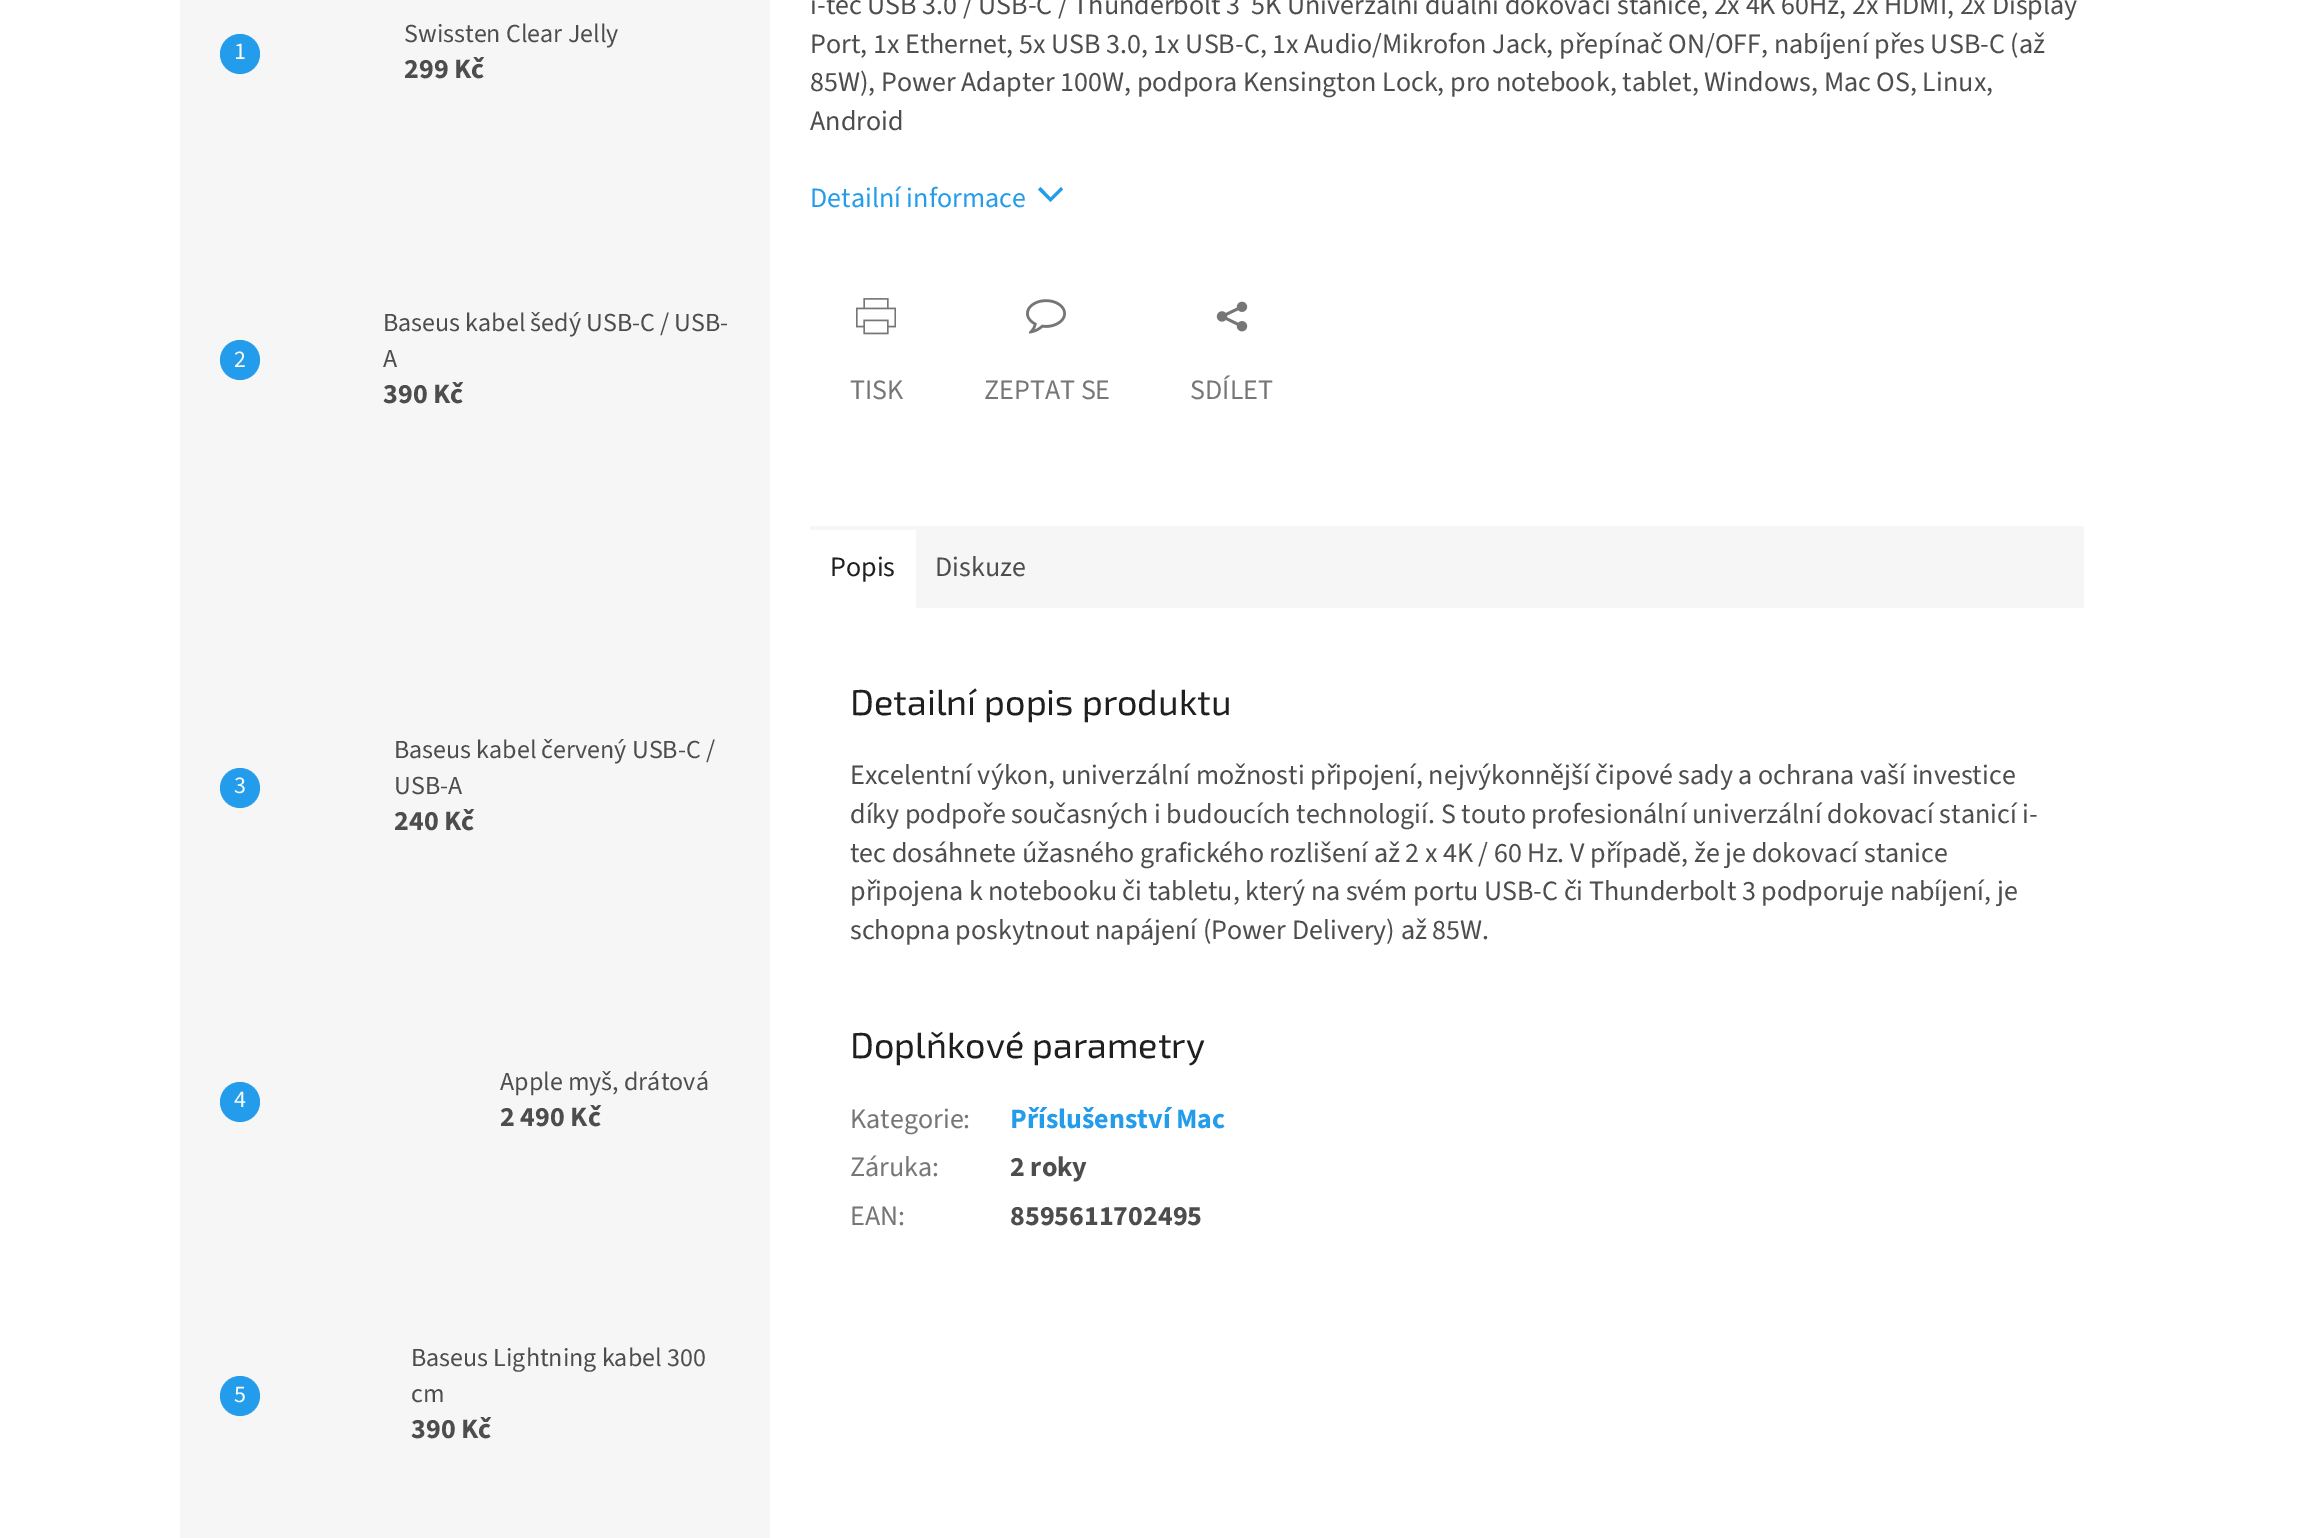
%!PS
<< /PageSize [2303 1538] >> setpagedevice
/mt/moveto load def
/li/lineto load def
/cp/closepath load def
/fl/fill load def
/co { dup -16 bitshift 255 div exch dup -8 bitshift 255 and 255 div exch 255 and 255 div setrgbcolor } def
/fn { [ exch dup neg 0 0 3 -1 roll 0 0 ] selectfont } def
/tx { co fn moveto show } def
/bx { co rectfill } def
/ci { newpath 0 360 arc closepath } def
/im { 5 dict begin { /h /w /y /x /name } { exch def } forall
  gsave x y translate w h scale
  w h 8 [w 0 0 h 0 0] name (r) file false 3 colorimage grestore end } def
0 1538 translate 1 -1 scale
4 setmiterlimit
0 0 2303 1538 16#FFFFFF bx
180 0 590 1538 16#F6F6F6 bx
16#239CEB co
240 54 20 ci fl
240 360 20 ci fl
240 788 20 ci fl
240 1102 20 ci fl
240 1396 20 ci fl
1038 189.5 mt 1040.5 187 li 1050.5 197.5 li 1061 187 li 1063 189.5 li 1050.5 202 li cp fl
(media/1.raw) 856 298 40 37 im
(media/2.raw) 1026 299 40 35 im
(media/3.raw) 1216 301 32 31 im
916 526 1168 82 16#F6F6F6 bx
810 526 106 4 16#F6F6F6 bx
(1) 234 59 /SourceSans3-Regular 24 16#FFFFFF tx
(Swissten Clear Jelly) 404 42 /SourceSans3-Regular 26 16#4D4D4D tx
(299 Kč) 404 78 /SourceSans3-Bold 28 16#4D4D4D tx
(2) 234 367 /SourceSans3-Regular 24 16#FFFFFF tx
(Baseus kabel šedý USB-C / USB-) 383 331 /SourceSans3-Regular 26 16#4D4D4D tx
(A) 383 367 /SourceSans3-Regular 26 16#4D4D4D tx
(390 Kč) 383 403 /SourceSans3-Bold 28 16#4D4D4D tx
(3) 234 793 /SourceSans3-Regular 24 16#FFFFFF tx
(Baseus kabel červený USB-C /) 394 758 /SourceSans3-Regular 26 16#4D4D4D tx
(USB-A) 394 794 /SourceSans3-Regular 26 16#4D4D4D tx
(240 Kč) 394 830 /SourceSans3-Bold 28 16#4D4D4D tx
(4) 234 1107 /SourceSans3-Regular 24 16#FFFFFF tx
(Apple myš, drátová) 500 1090 /SourceSans3-Regular 26 16#4D4D4D tx
(2 490 Kč) 500 1126 /SourceSans3-Bold 28 16#4D4D4D tx
(5) 234 1402 /SourceSans3-Regular 24 16#FFFFFF tx
(Baseus Lightning kabel 300) 411 1366 /SourceSans3-Regular 26 16#4D4D4D tx
(cm) 411 1402 /SourceSans3-Regular 26 16#4D4D4D tx
(390 Kč) 411 1438 /SourceSans3-Bold 28 16#4D4D4D tx
(i-tec USB 3.0 / USB-C / Thunderbolt 3  5K Univerzální duální dokovací stanice, 2x 4K 60Hz, 2x HDMI, 2x Display) 810 14 /SourceSans3-Regular 28 16#4D4D4D tx
(Port, 1x Ethernet, 5x USB 3.0, 1x USB-C, 1x Audio/Mikrofon Jack, přepínač ON/OFF, nabíjení přes USB-C \(až) 810 53 /SourceSans3-Regular 28 16#4D4D4D tx
(85W\), Power Adapter 100W, podpora Kensington Lock, pro notebook, tablet, Windows, Mac OS, Linux,) 810 91 /SourceSans3-Regular 28 16#4D4D4D tx
(Android) 810 130 /SourceSans3-Regular 28 16#4D4D4D tx
(Detailní informace) 810 207 /SourceSans3-Regular 28 16#239CEB tx
(TISK) 850 399 /SourceSans3-Regular 28 16#767676 tx
(ZEPTAT SE) 984 399 /SourceSans3-Regular 28 16#767676 tx
(SDÍLET) 1190 399 /SourceSans3-Regular 28 16#767676 tx
(Popis) 830 576 /SourceSans3-Regular 28 16#1F1F1F tx
(Diskuze) 935 576 /SourceSans3-Regular 28 16#4D4D4D tx
(Detailní popis produktu) 850 715 /Exo2-Regular 36 16#1F1F1F tx
(Excelentní výkon, univerzální možnosti připojení, nejvýkonnější čipové sady a ochrana vaší investice) 850 784 /SourceSans3-Regular 28 16#4D4D4D tx
(díky podpoře současných i budoucích technologií. S touto profesionální univerzální dokovací stanicí i-) 850 823 /SourceSans3-Regular 28 16#4D4D4D tx
(tec dosáhnete úžasného grafického rozlišení až 2 x 4K / 60 Hz. V případě, že je dokovací stanice) 850 862 /SourceSans3-Regular 28 16#4D4D4D tx
(připojena k notebooku či tabletu, který na svém portu USB-C či Thunderbolt 3 podporuje nabíjení, je) 850 900 /SourceSans3-Regular 28 16#4D4D4D tx
(schopna poskytnout napájení \(Power Delivery\) až 85W.) 850 939 /SourceSans3-Regular 28 16#4D4D4D tx
(Doplňkové parametry) 850 1058 /Exo2-Regular 36 16#1F1F1F tx
(Kategorie:) 850 1128 /SourceSans3-Regular 28 16#767676 tx
(Příslušenství Mac) 1010 1128 /SourceSans3-Bold 28 16#239CEB tx
(Záruka:) 850 1176 /SourceSans3-Regular 28 16#767676 tx
(2 roky) 1010 1176 /SourceSans3-Bold 28 16#4D4D4D tx
(EAN:) 850 1225 /SourceSans3-Regular 28 16#767676 tx
(8595611702495) 1010 1225 /SourceSans3-Bold 28 16#4D4D4D tx
showpage
